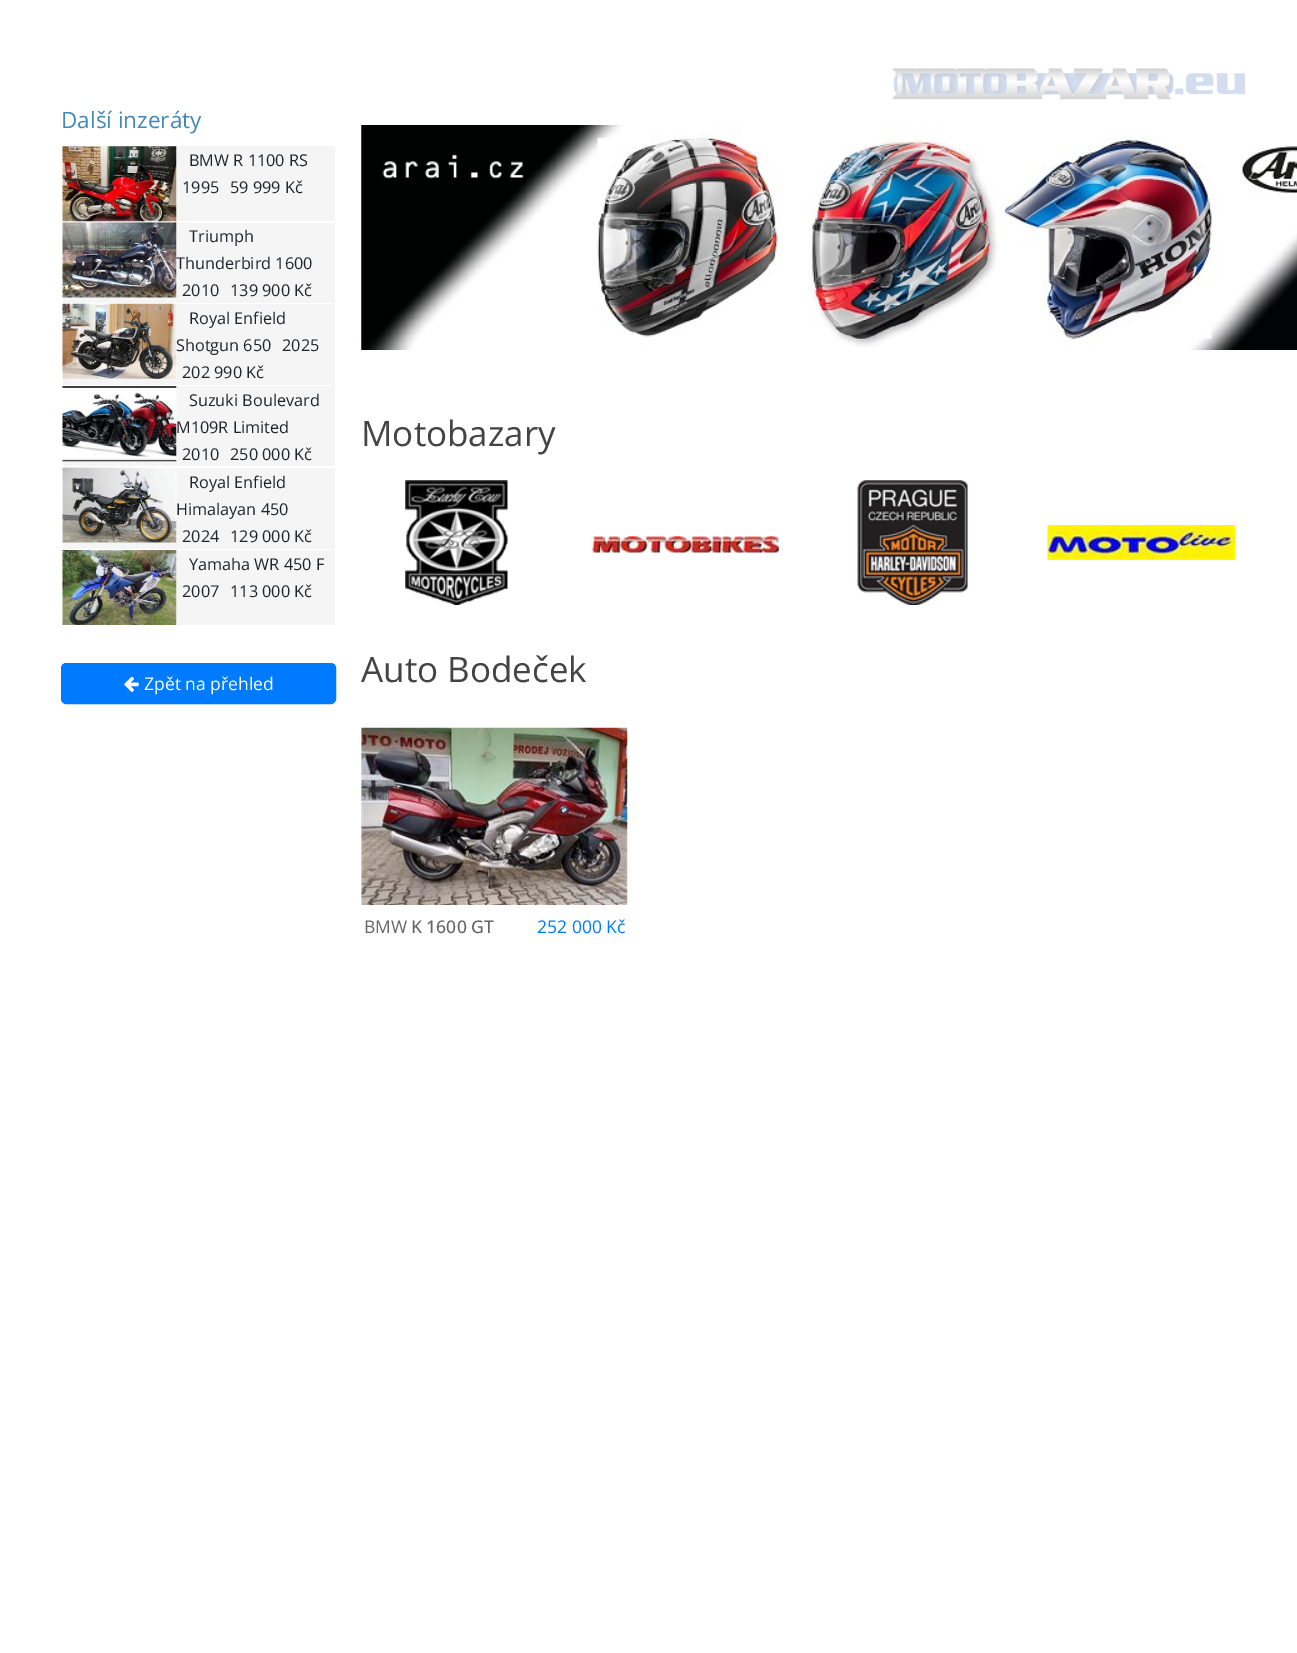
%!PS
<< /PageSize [1297 1653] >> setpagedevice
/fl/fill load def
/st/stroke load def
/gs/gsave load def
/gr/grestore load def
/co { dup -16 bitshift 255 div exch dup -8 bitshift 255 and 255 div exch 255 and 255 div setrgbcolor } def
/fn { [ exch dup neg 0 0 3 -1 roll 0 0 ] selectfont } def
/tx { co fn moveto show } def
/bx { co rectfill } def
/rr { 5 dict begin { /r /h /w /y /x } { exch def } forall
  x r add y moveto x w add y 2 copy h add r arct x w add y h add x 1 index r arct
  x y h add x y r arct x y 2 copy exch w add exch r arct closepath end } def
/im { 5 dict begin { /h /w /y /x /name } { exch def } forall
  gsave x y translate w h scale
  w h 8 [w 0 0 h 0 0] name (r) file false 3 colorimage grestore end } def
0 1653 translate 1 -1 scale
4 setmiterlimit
0 0 1297 1653 16#FFFFFF bx
63 146 272 75 16#F5F5F5 bx
(media/1.raw) 62 146 115 76 im
63 223 272 80 16#F5F5F5 bx
(media/2.raw) 62 222 115 76 im
63 304 272 81 16#F5F5F5 bx
(media/3.raw) 62 303 115 76 im
63 386 272 80 16#F5F5F5 bx
(media/4.raw) 62 386 115 76 im
63 468 272 81 16#F5F5F5 bx
(media/5.raw) 62 467 115 76 im
176 550 159 75 16#F5F5F5 bx
(media/6.raw) 62 550 115 75 im
16#007BFF co
61.5 663.5 274 40 4.5 rr gs fl gr
st
(media/7.raw) 124 676 15 16 im
(media/8.raw) 361 125 936 225 im
(media/9.raw) 405 480 103 125 im
(media/10.raw) 591 536 188 17 im
(media/11.raw) 857 480 111 125 im
(media/12.raw) 1047 525 188 35 im
(media/13.raw) 892 68 354 32 im
(media/14.raw) 361 727 267 178 im
(Další inzeráty) 61 128 /OpenSans-Regular 22.5 16#4488BB tx
(BMW R 1100 RS) 189 166 /OpenSans-Regular 16.25 16#212529 tx
(1995) 182 193 /OpenSans-Regular 16.25 16#212529 tx
(59 999 Kč) 230 193 /OpenSans-Regular 16.25 16#212529 tx
(Triumph) 189 242 /OpenSans-Regular 16.25 16#212529 tx
(Thunderbird 1600) 176 269 /OpenSans-Regular 16.25 16#212529 tx
(2010) 182 296 /OpenSans-Regular 16.25 16#212529 tx
(139 900 Kč) 230 296 /OpenSans-Regular 16.25 16#212529 tx
(Royal Enfield) 189 324 /OpenSans-Regular 16.25 16#212529 tx
(Shotgun 650) 176 351 /OpenSans-Regular 16.25 16#212529 tx
(2025) 282 351 /OpenSans-Regular 16.25 16#212529 tx
(202 990 Kč) 182 378 /OpenSans-Regular 16.25 16#212529 tx
(Suzuki Boulevard) 189 406 /OpenSans-Regular 16.25 16#212529 tx
(M109R Limited) 176 433 /OpenSans-Regular 16.25 16#212529 tx
(2010) 182 460 /OpenSans-Regular 16.25 16#212529 tx
(250 000 Kč) 230 460 /OpenSans-Regular 16.25 16#212529 tx
(Royal Enfield) 189 488 /OpenSans-Regular 16.25 16#212529 tx
(Himalayan 450) 176 515 /OpenSans-Regular 16.25 16#212529 tx
(2024) 182 542 /OpenSans-Regular 16.25 16#212529 tx
(129 000 Kč) 230 542 /OpenSans-Regular 16.25 16#212529 tx
(Yamaha WR 450 F) 189 570 /OpenSans-Regular 16.25 16#212529 tx
(2007) 182 597 /OpenSans-Regular 16.25 16#212529 tx
(113 000 Kč) 230 597 /OpenSans-Regular 16.25 16#212529 tx
(Zpět na přehled) 144 690 /OpenSans-Regular 17.5 16#FFFFFF tx
(Motobazary) 361 446 /OpenSans-Regular 35 16#444444 tx
(Auto Bodeček) 361 682 /OpenSans-Regular 35 16#444444 tx
(BMW) 364 933 /OpenSans-Regular 17.5 16#666666 tx
(K 1600 GT) 411 933 /OpenSans-Medium 17.5 16#666666 tx
(252 000 Kč) 537 933 /OpenSans-Regular 17.5 16#007BFF tx
showpage
